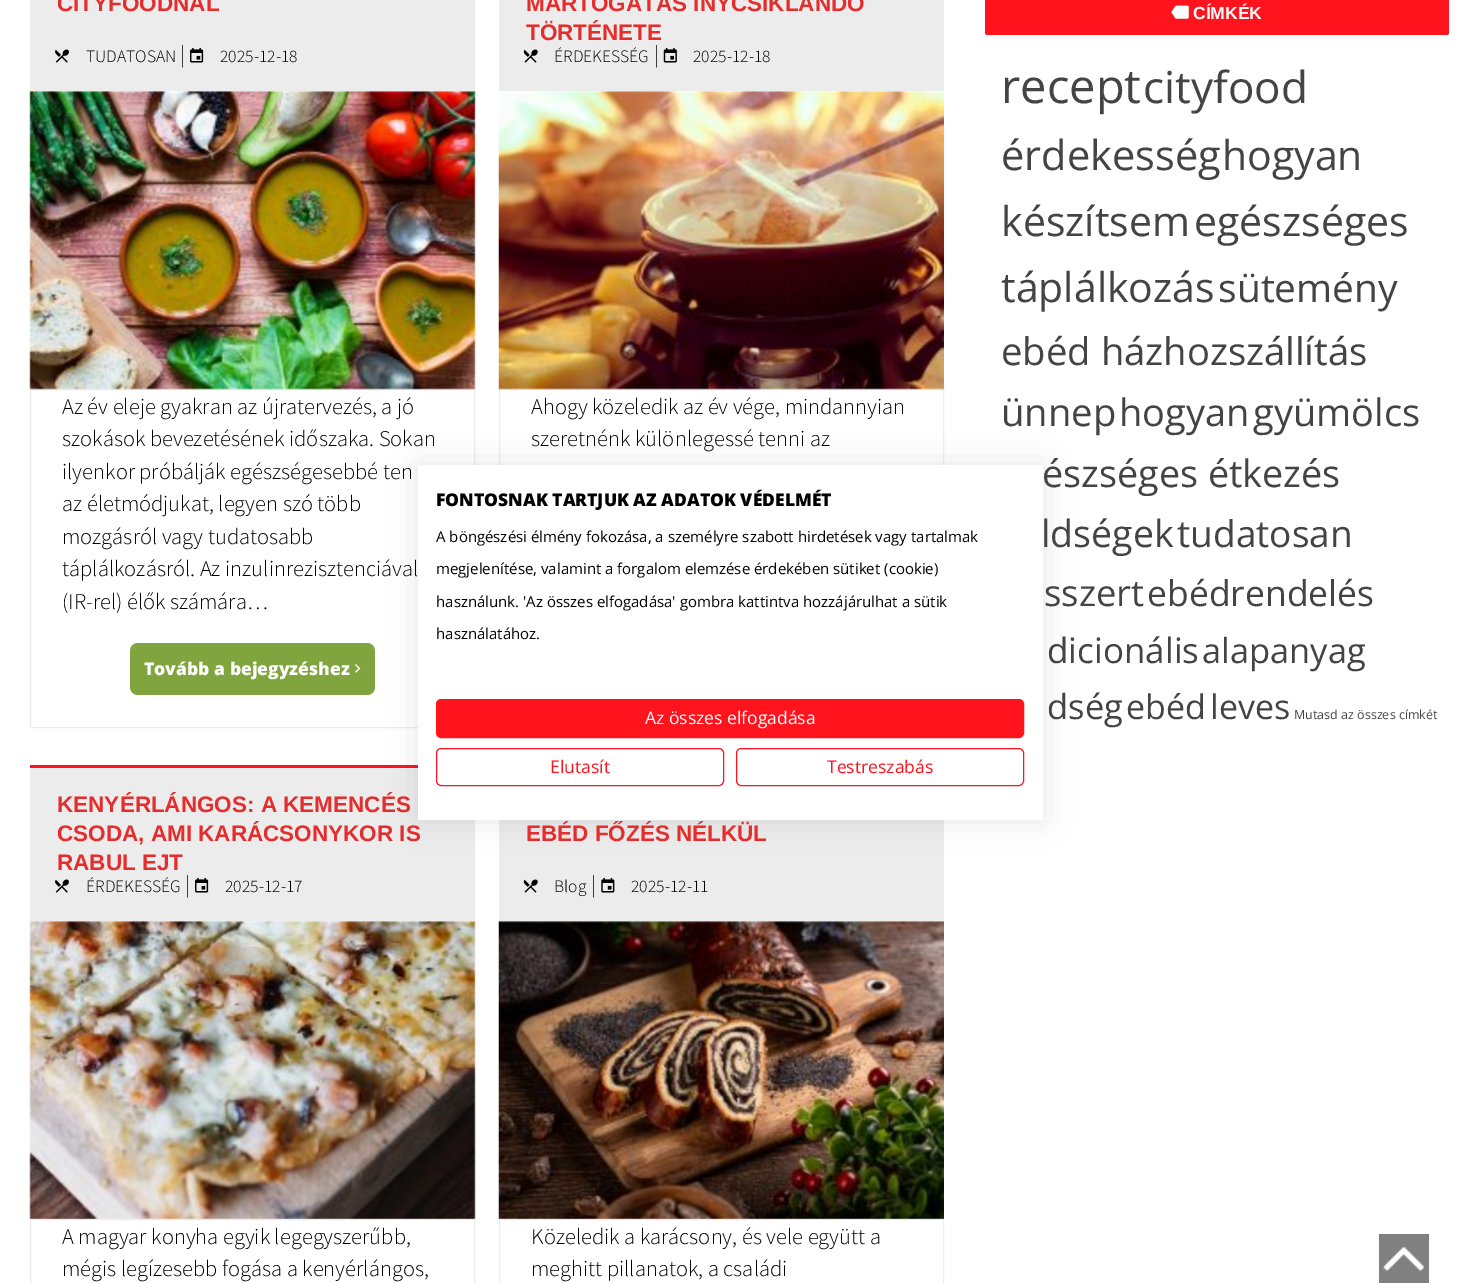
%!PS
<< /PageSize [1460 1283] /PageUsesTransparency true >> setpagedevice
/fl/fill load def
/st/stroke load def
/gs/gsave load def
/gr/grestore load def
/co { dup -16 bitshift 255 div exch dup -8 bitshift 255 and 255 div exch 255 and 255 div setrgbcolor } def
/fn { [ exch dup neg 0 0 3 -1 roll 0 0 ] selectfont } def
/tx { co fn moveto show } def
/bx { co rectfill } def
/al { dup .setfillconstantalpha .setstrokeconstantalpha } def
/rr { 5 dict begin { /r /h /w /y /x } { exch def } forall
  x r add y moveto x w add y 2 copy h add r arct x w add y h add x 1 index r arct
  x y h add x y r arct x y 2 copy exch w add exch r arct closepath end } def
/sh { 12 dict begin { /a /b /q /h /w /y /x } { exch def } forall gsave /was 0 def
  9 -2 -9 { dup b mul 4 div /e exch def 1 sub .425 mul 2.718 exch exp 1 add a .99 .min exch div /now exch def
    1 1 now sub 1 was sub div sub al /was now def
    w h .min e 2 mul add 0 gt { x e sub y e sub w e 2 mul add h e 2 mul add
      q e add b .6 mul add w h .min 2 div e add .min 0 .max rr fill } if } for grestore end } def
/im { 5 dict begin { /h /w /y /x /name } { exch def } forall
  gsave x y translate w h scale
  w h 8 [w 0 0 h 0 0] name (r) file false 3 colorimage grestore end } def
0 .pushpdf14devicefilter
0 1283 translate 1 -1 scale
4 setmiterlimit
0 0 1460 1283 16#FFFFFF bx
30 0 445 91 16#ECECEC bx
(media/1.raw) 55 49 14 14 im
(media/2.raw) 190 47 14 16 im
30.5 389.5 444 338 rectstroke
(media/3.raw) 29 91 447 299 im
16#80A53E co
130 643 245 52 8 rr fl
(media/4.raw) 355 664 6 9 im
499 0 445 91 16#ECECEC bx
(media/5.raw) 523 49 15 14 im
(media/6.raw) 663 47 14 16 im
499.5 389.5 444 305 rectstroke
(media/7.raw) 498 91 446 299 im
30 768 445 153 16#ECECEC bx
30 765 388 3 16#FF131D bx
(media/1.raw) 55 879 14 14 im
(media/2.raw) 195 877 14 16 im
(media/8.raw) 29 921 447 298 im
16#ECECEC co
30.5 1219.5 444 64 rectstroke
499 820 445 101 16#ECECEC bx
(media/5.raw) 523 879 15 14 im
(media/9.raw) 601 877 14 16 im
(media/10.raw) 498 921 446 298 im
499.5 1219.5 444 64 rectstroke
16#FF131D co
985 -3 464 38 2.5 rr fl
(media/11.raw) 1171 5 18 14 im
16#000000 co
418 465 625 355 0 15 .1 sh
418 465 625 355 16#FFFFFF bx
16#FF131D co
436.5 699.5 587 38 4.5 rr gs fl gr
st
436.5 748.5 287 37 4.5 rr st
736.5 748.5 287 37 4.5 rr st
1379 1234 50 49 16#808080 bx
(media/12.raw) 1383 1246 41 26 im
(CITYFOODNÁL) 57 11 /LiberationSans-Bold 22.5 16#E52D2D tx
(TUDATOSAN) 86 62 /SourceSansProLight-Light 17.5 16#000000 tx
(|) 180 62 /SourceSansProLight-Light 22.5 16#000000 tx
(2025-12-18) 220 62 /SourceSansProLight-Light 17.5 16#000000 tx
(Az év eleje gyakran az újratervezés, a jó) 62 414 /SourceSansProLight-Light 22.5 16#000000 tx
(szokások bevezetésének időszaka. Sokan) 62 446 /SourceSansProLight-Light 22.5 16#000000 tx
(ilyenkor próbálják egészségesebbé ten) 62 479 /SourceSansProLight-Light 22.5 16#000000 tx
(az életmódjukat, legyen szó több) 62 511 /SourceSansProLight-Light 22.5 16#000000 tx
(mozgásról vagy tudatosabb) 62 544 /SourceSansProLight-Light 22.5 16#000000 tx
(táplálkozásról. Az inzulinrezisztenciával) 62 576 /SourceSansProLight-Light 22.5 16#000000 tx
(\(IR-rel\) élők számára…) 62 609 /SourceSansProLight-Light 22.5 16#000000 tx
(Tovább a bejegyzéshez) 144 675 /OpenSans-ExtraBold 17.5 16#FFFFFF tx
(MÁRTOGATÁS ÍNYCSIKLANDÓ) 526 11 /LiberationSans-Bold 22.5 16#E52D2D tx
(TÖRTÉNETE) 526 40 /LiberationSans-Bold 22.5 16#E52D2D tx
(ÉRDEKESSÉG) 554 62 /SourceSansProLight-Light 17.5 16#000000 tx
(|) 654 62 /SourceSansProLight-Light 22.5 16#000000 tx
(2025-12-18) 693 62 /SourceSansProLight-Light 17.5 16#000000 tx
(Ahogy közeledik az év vége, mindannyian) 531 414 /SourceSansProLight-Light 22.5 16#000000 tx
(szeretnénk különlegessé tenni az) 531 446 /SourceSansProLight-Light 22.5 16#000000 tx
(KENYÉRLÁNGOS: A KEMENCÉS) 57 812 /LiberationSans-Bold 22.5 16#E52D2D tx
(CSODA, AMI KARÁCSONYKOR IS) 57 841 /LiberationSans-Bold 22.5 16#E52D2D tx
(RABUL EJT) 57 870 /LiberationSans-Bold 22.5 16#E52D2D tx
(ÉRDEKESSÉG) 86 892 /SourceSansProLight-Light 17.5 16#000000 tx
(|) 185 892 /SourceSansProLight-Light 22.5 16#000000 tx
(2025-12-17) 225 892 /SourceSansProLight-Light 17.5 16#000000 tx
(A magyar konyha egyik legegyszerűbb,) 62 1244 /SourceSansProLight-Light 22.5 16#000000 tx
(mégis legízesebb fogása a kenyérlángos,) 62 1276 /SourceSansProLight-Light 22.5 16#000000 tx
(EBÉD FŐZÉS NÉLKÜL) 526 841 /LiberationSans-Bold 22.5 16#E52D2D tx
(Blog) 554 892 /SourceSansProLight-Light 17.5 16#000000 tx
(|) 591 892 /SourceSansProLight-Light 22.5 16#000000 tx
(2025-12-11) 631 892 /SourceSansProLight-Light 17.5 16#000000 tx
(Közeledik a karácsony, és vele együtt a) 531 1244 /SourceSansProLight-Light 22.5 16#000000 tx
(meghitt pillanatok, a családi) 531 1276 /SourceSansProLight-Light 22.5 16#000000 tx
(CÍMKÉK) 1193 19 /LiberationSans-Bold 17.5 16#FFFFFF tx
(recept) 1001 103 /OpenSans-Regular 47 16#444444 tx
(cityfood) 1143 103 /OpenSans-Regular 44 16#444444 tx
(érdekesség) 1001 170 /OpenSans-Regular 41.5 16#444444 tx
(hogyan) 1222 170 /OpenSans-Regular 41 16#444444 tx
(készítsem) 1001 236 /OpenSans-Regular 41 16#444444 tx
(egészséges) 1194 236 /OpenSans-Regular 41 16#444444 tx
(táplálkozás) 1001 302 /OpenSans-Regular 41 16#444444 tx
(sütemény) 1218 302 /OpenSans-Regular 39 16#444444 tx
(ebéd házhozszállítás) 1001 365 /OpenSans-Regular 38.25 16#444444 tx
(ünnep) 1001 426 /OpenSans-Regular 38.25 16#444444 tx
(hogyan) 1119 426 /OpenSans-Regular 38 16#444444 tx
(gyümölcs) 1253 426 /OpenSans-Regular 38 16#444444 tx
(észséges étkezés) 1042 487 /OpenSans-Regular 37.75 16#444444 tx
(ldségek) 1041 547 /OpenSans-Regular 37.5 16#444444 tx
(tudatosan) 1177 547 /OpenSans-Regular 37 16#444444 tx
(sszert) 1044 606 /OpenSans-Regular 36.5 16#444444 tx
(ebédrendelés) 1147 606 /OpenSans-Regular 35.5 16#444444 tx
(dicionális) 1047 663 /OpenSans-Regular 35 16#444444 tx
(alapanyag) 1202 663 /OpenSans-Regular 34.5 16#444444 tx
(dség) 1047 719 /OpenSans-Regular 34.5 16#444444 tx
(ebéd) 1126 719 /OpenSans-Regular 34 16#444444 tx
(leves) 1210 719 /OpenSans-Regular 34 16#444444 tx
(Mutasd az összes címkét) 1294 719 /OpenSans-Regular 12.5 16#444444 tx
(FONTOSNAK TARTJUK AZ ADATOK VÉDELMÉT) 436 506 /OpenSans-ExtraBold 17.5 16#000000 tx
(A böngészési élmény fokozása, a személyre szabott hirdetések vagy tartalmak) 436 542 /OpenSans-Regular 15 16#000000 tx
(megjelenítése, valamint a forgalom elemzése érdekében sütiket \(cookie\)) 436 574 /OpenSans-Regular 15 16#000000 tx
(használunk. 'Az összes elfogadása' gombra kattintva hozzájárulhat a sütik) 436 607 /OpenSans-Regular 15 16#000000 tx
(használatához.) 436 639 /OpenSans-Regular 15 16#000000 tx
(Az összes elfogadása) 645 724 /OpenSans-Regular 17.5 16#FFFFFF tx
(Elutasít) 550 773 /OpenSans-Regular 17.5 16#FF131D tx
(Testreszabás) 827 773 /OpenSans-Regular 17.5 16#FF131D tx
.poppdf14devicefilter showpage
